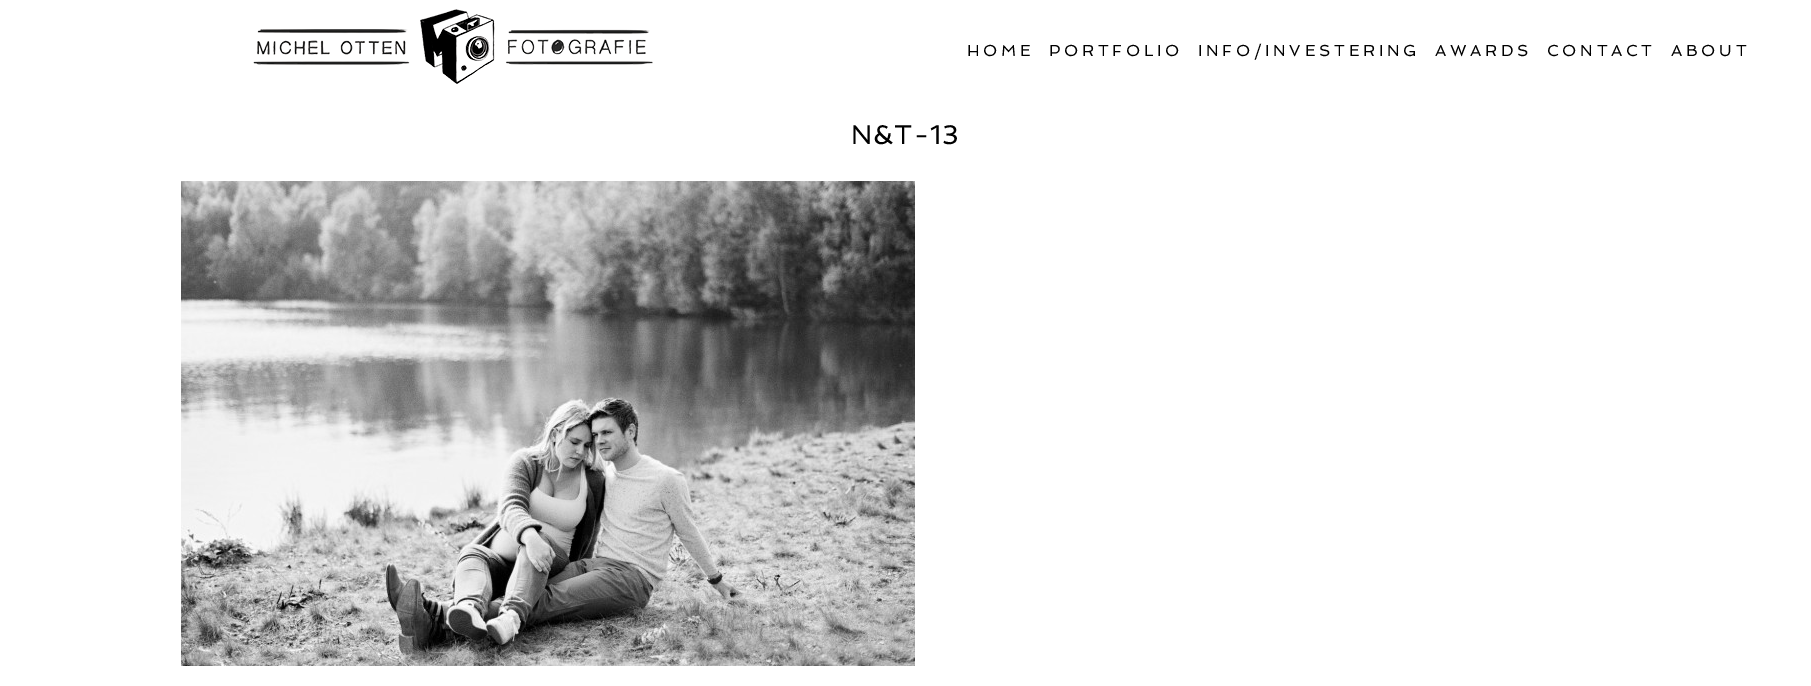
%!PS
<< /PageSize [1811 686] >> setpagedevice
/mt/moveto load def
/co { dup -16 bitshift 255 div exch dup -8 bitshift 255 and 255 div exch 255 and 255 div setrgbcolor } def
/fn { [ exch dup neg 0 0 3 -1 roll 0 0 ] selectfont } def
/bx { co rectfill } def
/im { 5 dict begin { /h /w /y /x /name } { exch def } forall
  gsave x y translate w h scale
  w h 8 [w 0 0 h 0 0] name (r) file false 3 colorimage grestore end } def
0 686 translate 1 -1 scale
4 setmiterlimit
0 0 1811 686 16#FFFFFF bx
(media/1.raw) 253 9 400 75 im
(media/2.raw) 181 181 734 485 im
/Spinnaker-Regular 16 fn
16#000000 co
967 56 mt 3.7 0 (HOME) ashow
1049 56 mt 3.7 0 (PORTFOLIO) ashow
1198 56 mt 3.7 0 (INFO/INVESTERING) ashow
1435 56 mt 3.7 0 (AWARDS) ashow
1547 56 mt 3.7 0 (CONTACT) ashow
1671 56 mt 3.7 0 (ABOUT) ashow
/Spinnaker-Regular 27 fn
851 144 mt 1 0 (N&T-13) ashow
showpage
